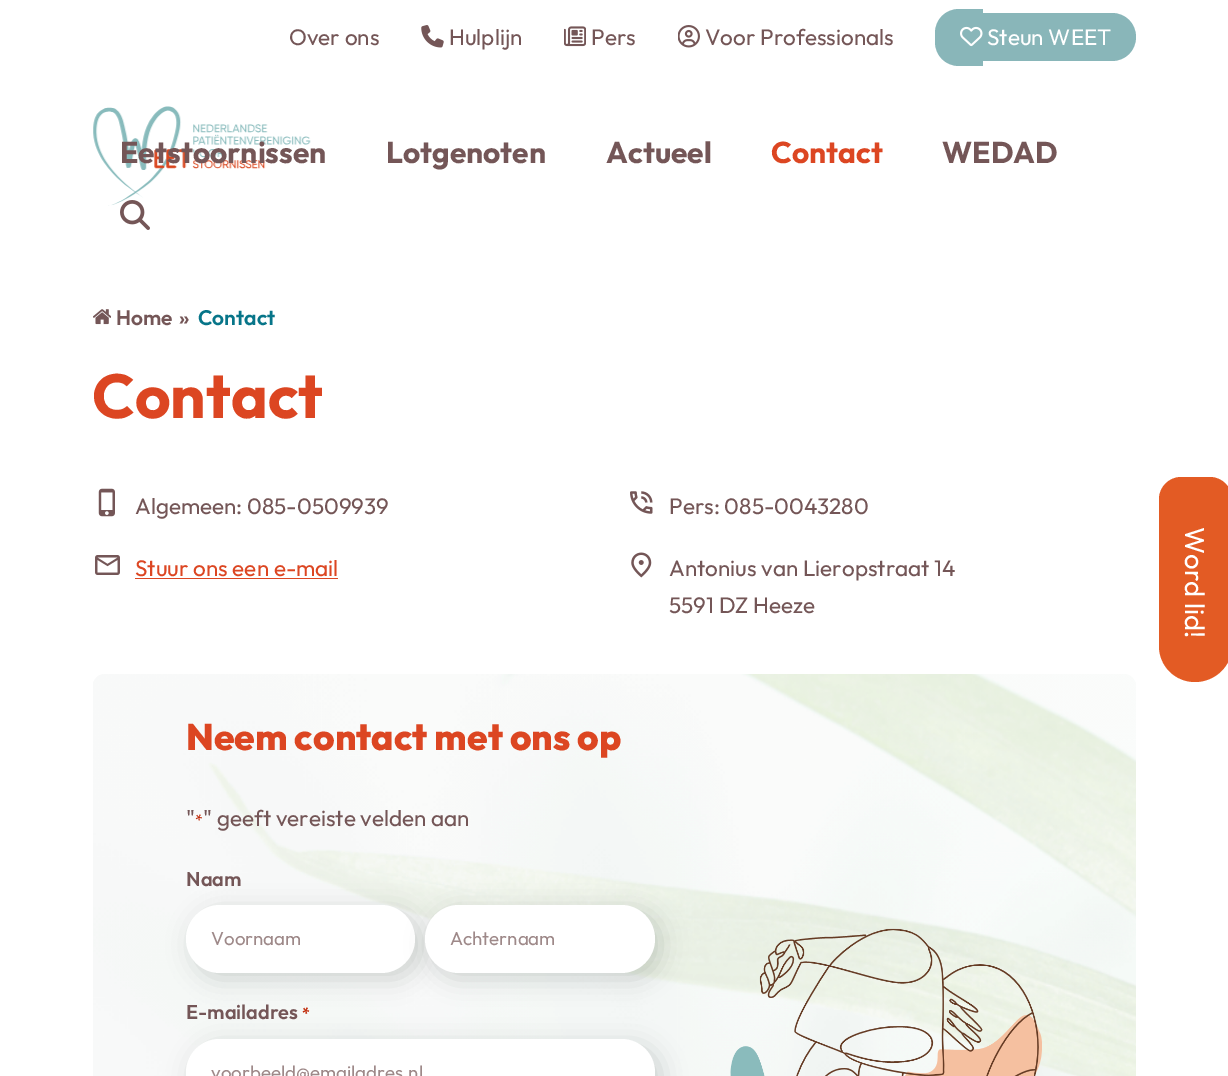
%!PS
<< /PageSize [1228 1076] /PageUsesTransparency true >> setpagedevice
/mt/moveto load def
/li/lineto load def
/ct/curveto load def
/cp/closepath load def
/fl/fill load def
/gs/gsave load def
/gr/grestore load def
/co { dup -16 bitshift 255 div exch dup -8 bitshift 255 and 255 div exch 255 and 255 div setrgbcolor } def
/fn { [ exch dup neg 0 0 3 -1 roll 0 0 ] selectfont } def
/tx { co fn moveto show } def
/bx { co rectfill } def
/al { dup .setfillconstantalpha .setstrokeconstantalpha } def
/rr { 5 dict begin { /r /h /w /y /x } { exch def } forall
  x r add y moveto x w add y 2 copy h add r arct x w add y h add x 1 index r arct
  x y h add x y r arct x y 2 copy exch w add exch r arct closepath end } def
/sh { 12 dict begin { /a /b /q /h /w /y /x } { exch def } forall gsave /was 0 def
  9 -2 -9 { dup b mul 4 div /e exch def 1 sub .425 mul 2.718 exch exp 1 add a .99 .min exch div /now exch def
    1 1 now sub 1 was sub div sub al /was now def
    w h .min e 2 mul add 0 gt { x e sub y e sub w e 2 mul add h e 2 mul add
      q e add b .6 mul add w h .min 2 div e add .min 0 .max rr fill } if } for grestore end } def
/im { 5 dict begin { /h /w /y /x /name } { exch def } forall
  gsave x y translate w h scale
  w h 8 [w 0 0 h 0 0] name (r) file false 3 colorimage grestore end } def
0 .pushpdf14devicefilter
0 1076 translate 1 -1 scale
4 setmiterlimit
0 0 1228 1076 16#FFFFFF bx
(media/1.raw) 421 25 23 23 im
(media/2.raw) 564 26 22 21 im
(media/3.raw) 678 25 22 23 im
16#89B6B9 co
959 9 mt 983 9 li 983 66 li 959 66 li 945.5 66 935 55.5 935 42 ct 935 33 li 935 19.5 945.5 9 959 9 ct cp fl
983 13 mt 1112 13 li 1125.5 13 1136 23.5 1136 37 ct 1136 50.5 1125.5 61 1112 61 ct 983 61 li cp fl
(media/4.raw) 960 26 23 21 im
(media/5.raw) 93 106 218 100 im
(media/6.raw) 120 200 30 30 im
(media/7.raw) 93 309 18 16 im
(media/8.raw) 98 488 17 29 im
(media/9.raw) 630 491 23 23 im
(media/10.raw) 95 555 25 20 im
135 578 203 1 16#DC4622 bx
(media/11.raw) 631 552 21 26 im
(media/12.raw) 93 674 1043 402 im
16#041408 co
193 911 228 68 34 12.5 .16 sh
16#FFFFFF co
186 905 229 68 34 rr fl
16#041408 co
431 911 230 68 34 12.5 .16 sh
16#FFFFFF co
425 905 230 68 34 rr fl
16#041408 co
193 1045 468 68 34 12.5 .16 sh
16#FFFFFF co
186 1039 469 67 33.5 rr fl
(media/13.raw) 730 928 312 148 im
16#E35B24 co
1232 499 mt 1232 521 li 1159 521 li 1159 499 li 1159 487 1169 477 1181 477 ct 1210 477 li 1222 477 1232 487 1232 499 ct cp fl
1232 521 mt 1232 646 li 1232 666 1215 682 1195 682 ct 1175 682 1159 666 1159 646 ct 1159 521 li cp fl
(Over ons) 289 45 /Outfit-Regular 22.5 16#745657 tx
(Hulplijn) 449 45 /Outfit-Regular 22.5 16#745657 tx
(Pers) 591 45 /Outfit-Regular 22.5 16#745657 tx
(Voor Professionals) 705 45 /Outfit-Regular 22.5 16#745657 tx
(Steun WEET) 987 45 /Outfit-Regular 22.5 16#FFFFFF tx
(Eetstoornissen) 120 163 /Outfit-Bold 30 16#745657 tx
(Lotgenoten) 386 163 /Outfit-Bold 30 16#745657 tx
(Actueel) 606 163 /Outfit-Bold 30 16#745657 tx
(Contact) 771 163 /Outfit-Bold 30 16#DC4622 tx
(WEDAD) 942 163 /Outfit-Bold 30 16#745657 tx
(Home) 116 325 /Outfit-SemiBold 21 16#745657 tx
(») 179 325 /Outfit-SemiBold 21 16#745657 tx
(Contact) 198 325 /Outfit-SemiBold 21 16#077589 tx
(Contact) 92 418 /Outfit-Bold 62 16#DC4622 tx
(Algemeen: 085-0509939) 135 514 /Outfit-Regular 22.5 16#745657 tx
(Pers: 085-0043280) 669 514 /Outfit-Regular 22.5 16#745657 tx
(Stuur ons een e-mail) 135 576 /Outfit-Regular 22.5 16#DC4622 tx
(Antonius van Lieropstraat 14) 669 576 /Outfit-Regular 22.5 16#745657 tx
(5591 DZ Heeze) 669 613 /Outfit-Regular 22.5 16#745657 tx
(Neem contact met ons op) 186 750 /Outfit-ExtraBold 37.1 16#DC4622 tx
(") 186 826 /Outfit-Regular 22.5 16#745657 tx
(*) 195 826 /Outfit-Regular 16 16#C02B0A tx
(" geeft vereiste velden aan) 203 826 /Outfit-Regular 22.5 16#745657 tx
(Naam) 186 886 /Outfit-SemiBold 20 16#745657 tx
(Voornaam) 211 945 /Outfit-Regular 18.75 16#9E8989 tx
(Achternaam) 450 945 /Outfit-Regular 18.75 16#9E8989 tx
(E-mailadres) 186 1019 /Outfit-SemiBold 20 16#745657 tx
(*) 302 1019 /Outfit-SemiBold 16 16#C02B0A tx
(voorbeeld@emailadres.nl) 211 1079 /Outfit-Regular 18.75 16#9E8989 tx
/Outfit-Regular 27.5 fn
16#FFFFFF co
gs 1185 527 translate 90 rotate 0 0 mt (Word lid!) show gr
.poppdf14devicefilter showpage
